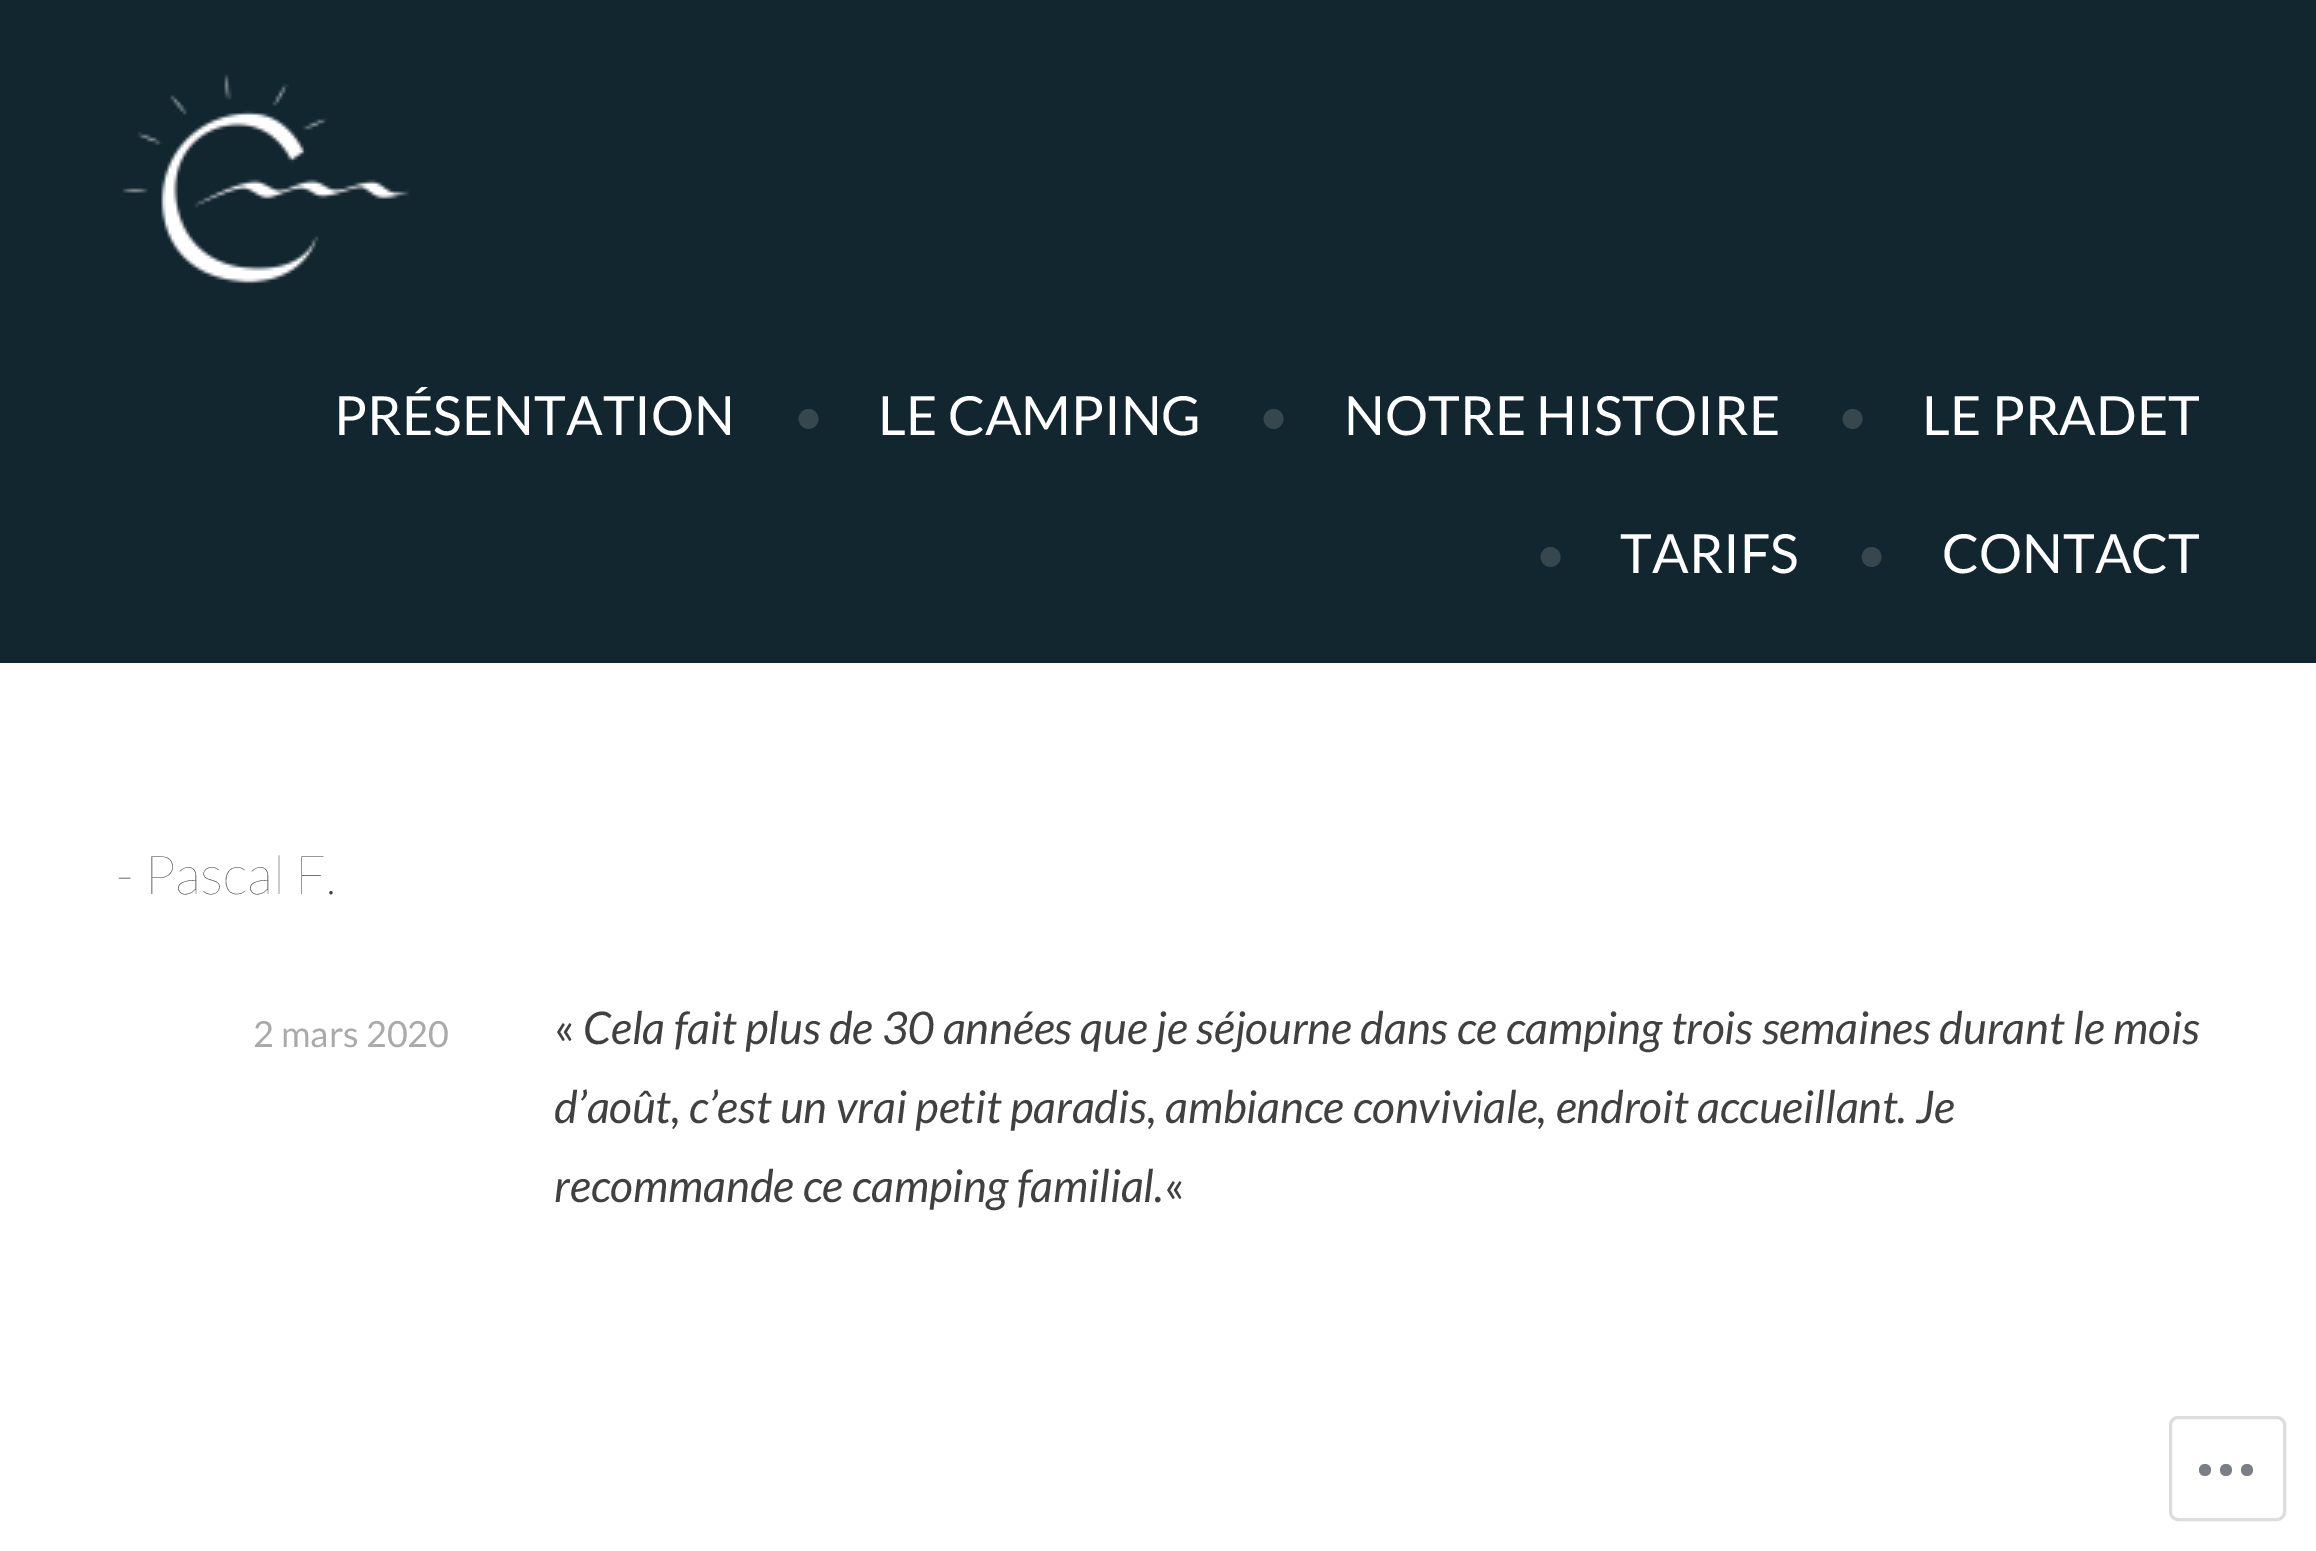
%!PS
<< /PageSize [2316 1551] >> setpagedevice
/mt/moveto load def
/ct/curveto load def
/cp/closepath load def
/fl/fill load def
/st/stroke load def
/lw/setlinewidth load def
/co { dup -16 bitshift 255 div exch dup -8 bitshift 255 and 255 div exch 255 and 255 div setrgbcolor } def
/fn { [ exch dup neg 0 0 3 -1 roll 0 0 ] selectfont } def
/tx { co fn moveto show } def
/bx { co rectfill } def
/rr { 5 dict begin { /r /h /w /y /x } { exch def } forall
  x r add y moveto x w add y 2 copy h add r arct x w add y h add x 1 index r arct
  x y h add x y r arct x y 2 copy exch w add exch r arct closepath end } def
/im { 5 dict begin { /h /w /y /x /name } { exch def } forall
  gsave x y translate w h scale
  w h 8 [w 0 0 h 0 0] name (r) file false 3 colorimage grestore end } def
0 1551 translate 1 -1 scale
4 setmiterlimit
0 0 2316 1551 16#FFFFFF bx
0 0 2316 663 16#12262F bx
(media/1.raw) 122 74 288 211 im
16#DDDDDF co
3 lw
2170.5 1417.5 114 102 7.5 rr st
16#7B7F85 co
2211 1470 mt 2211 1478 2199 1478 2199 1470 ct 2199 1462 2211 1462 2211 1470 ct cp 2247 1464 mt 2239 1464 2239 1476 2247 1476 ct 2255 1476 2255 1464 2247 1464 ct cp 2226 1464 mt 2218 1464 2218 1476 2226 1476 ct 2234 1476 2234 1464 2226 1464 ct cp fl
(PRÉSENTATION) 334 435 /Lato-Regular 54 16#FFFFFF tx
(•) 793 435 /Lato-Regular 54 16#36474E tx
(LE CAMPING) 878 435 /Lato-Regular 54 16#FFFFFF tx
(•) 1258 435 /Lato-Regular 54 16#36474E tx
(NOTRE HISTOIRE) 1344 435 /Lato-Regular 54 16#FFFFFF tx
(•) 1837 435 /Lato-Regular 54 16#36474E tx
(LE PRADET) 1922 435 /Lato-Regular 54 16#FFFFFF tx
(•) 1535 573 /Lato-Regular 54 16#36474E tx
(TARIFS) 1620 573 /Lato-Regular 54 16#FFFFFF tx
(•) 1856 573 /Lato-Regular 54 16#36474E tx
(CONTACT) 1942 573 /Lato-Regular 54 16#FFFFFF tx
(- Pascal F.) 116 894 /Lato-Thin 54 16#404040 tx
(2 mars 2020) 253 1047 /Lato-Regular 36 16#AAAAAA tx
(«) 554 1044 /Lato-Regular 45 16#404040 tx
(Cela fait plus de 30 années que je séjourne dans ce camping trois semaines durant le mois) 583 1044 /Lato-Italic 45 16#404040 tx
(d’août, c’est un vrai petit paradis, ambiance conviviale, endroit accueillant. Je) 554 1123 /Lato-Italic 45 16#404040 tx
(recommande ce camping familial.) 554 1202 /Lato-Italic 45 16#404040 tx
(«) 1164 1202 /Lato-Regular 45 16#404040 tx
showpage
